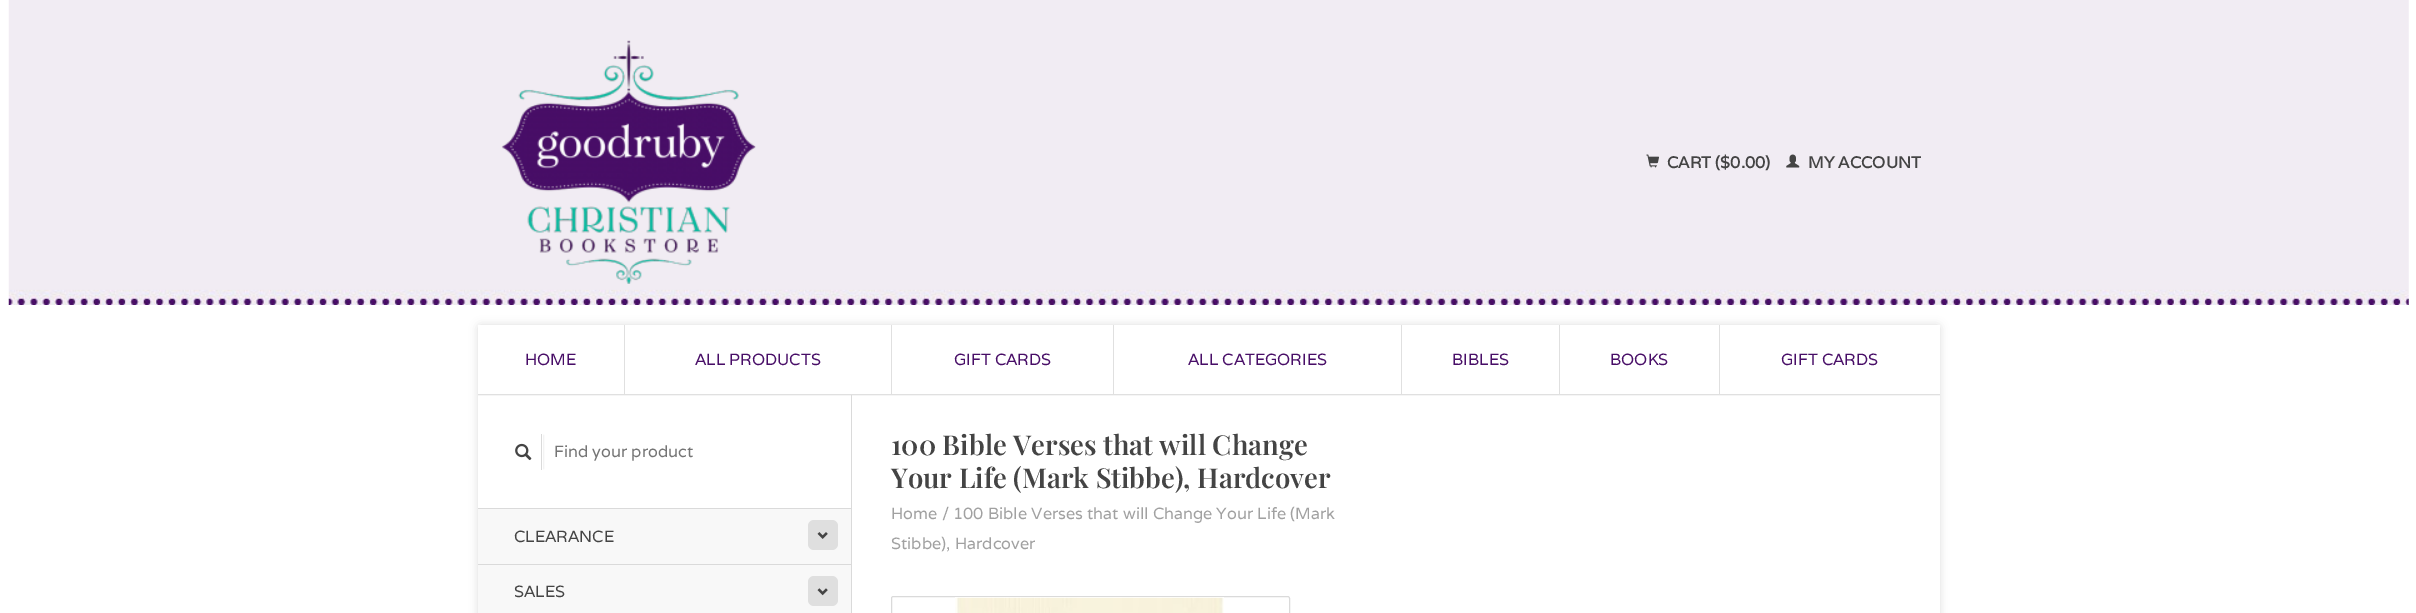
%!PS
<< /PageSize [2416 613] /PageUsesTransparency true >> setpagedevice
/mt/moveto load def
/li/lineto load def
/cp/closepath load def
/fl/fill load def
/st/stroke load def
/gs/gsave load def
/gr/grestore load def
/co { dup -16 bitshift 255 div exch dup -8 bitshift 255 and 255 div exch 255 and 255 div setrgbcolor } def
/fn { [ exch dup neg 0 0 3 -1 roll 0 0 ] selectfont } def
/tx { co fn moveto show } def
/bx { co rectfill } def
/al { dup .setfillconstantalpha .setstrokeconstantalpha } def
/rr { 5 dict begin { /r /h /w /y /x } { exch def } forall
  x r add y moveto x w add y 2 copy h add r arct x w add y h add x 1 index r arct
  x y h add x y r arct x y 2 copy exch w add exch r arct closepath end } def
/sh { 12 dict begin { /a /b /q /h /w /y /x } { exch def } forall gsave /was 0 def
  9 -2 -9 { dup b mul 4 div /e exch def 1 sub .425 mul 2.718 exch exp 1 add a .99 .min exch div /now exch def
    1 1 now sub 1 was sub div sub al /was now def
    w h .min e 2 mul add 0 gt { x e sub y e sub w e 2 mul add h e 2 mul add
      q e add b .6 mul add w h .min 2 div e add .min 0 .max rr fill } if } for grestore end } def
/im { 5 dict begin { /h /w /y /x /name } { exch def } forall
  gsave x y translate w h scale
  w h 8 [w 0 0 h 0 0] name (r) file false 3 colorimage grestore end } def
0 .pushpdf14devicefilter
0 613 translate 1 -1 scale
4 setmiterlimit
0 0 2416 613 16#FFFFFF bx
(media/1.raw) 8 0 2401 305 im
(media/2.raw) 501 40 255 244 im
(media/3.raw) 1646 154 13 14 im
(media/4.raw) 1786 154 14 14 im
16#000000 co
478 325 1462 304 2.5 4.5 .13 sh
478 325 1462 288 16#FFFFFF bx
478 395 1462 1 16#F5F5F5 bx
478 394 1462 1 16#E0E0E0 bx
624 325 1 69 16#E0E0E0 bx
891 325 1 69 16#E0E0E0 bx
1113 325 1 69 16#E0E0E0 bx
1401 325 1 69 16#E0E0E0 bx
1559 325 1 69 16#E0E0E0 bx
1719 325 1 69 16#E0E0E0 bx
851 395 1 218 16#DADADA bx
gs
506 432 mt 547 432 li 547 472 li 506 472 li cp 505 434 mt 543 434 li 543 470 li 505 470 li cp eoclip newpath
16#000000 co
509 435 35 34 0 .5 .06 sh
gr
541 434 1 36 16#DADADA bx
(media/5.raw) 515 443 17 18 im
478 509 373 55 16#F8F8F8 bx
478 508 373 1 16#DADADA bx
16#DFDFDF co
808 520 30 30 6 rr fl
(media/6.raw) 817 532 11 7 im
478 565 373 48 16#F8F8F8 bx
478 564 373 1 16#DADADA bx
16#DFDFDF co
808 576 30 30 6 rr fl
(media/7.raw) 817 588 11 8 im
16#DADADA co
891.5 596.5 398 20 2 rr st
(media/8.raw) 955 597 269 16 im
(CART \($0.00\)) 1667 168 /Varela-Bold 16.25 16#444444 tx
(MY ACCOUNT) 1808 168 /Varela-Bold 16.25 16#444444 tx
(HOME) 525 365 /Varela-Regular 16.25 16#480E67 tx
(ALL PRODUCTS) 695 365 /Varela-Regular 16.25 16#480E67 tx
(GIFT CARDS) 954 365 /Varela-Regular 16.25 16#480E67 tx
(ALL CATEGORIES) 1188 365 /Varela-Regular 16.25 16#480E67 tx
(BIBLES) 1452 365 /Varela-Regular 16.25 16#480E67 tx
(BOOKS) 1610 365 /Varela-Regular 16.25 16#480E67 tx
(GIFT CARDS) 1781 365 /Varela-Regular 16.25 16#480E67 tx
(Find your product) 554 457 /Varela-Regular 16.25 16#757575 tx
(CLEARANCE) 514 542 /Varela-Regular 16.25 16#444444 tx
(SALES) 514 597 /Varela-Regular 16.25 16#444444 tx
(100 Bible Verses that will Change) 891 455 /PlayfairDisplay-SemiBold 27.4 16#444444 tx
(Your Life \(Mark Stibbe\), Hardcover) 891 488 /PlayfairDisplay-SemiBold 27.4 16#444444 tx
(Home / 100 Bible Verses that will Change Your Life \(Mark) 891 519 /Varela-Regular 16.25 16#A1A1A1 tx
(Stibbe\), Hardcover) 891 549 /Varela-Regular 16.25 16#A1A1A1 tx
.poppdf14devicefilter showpage
